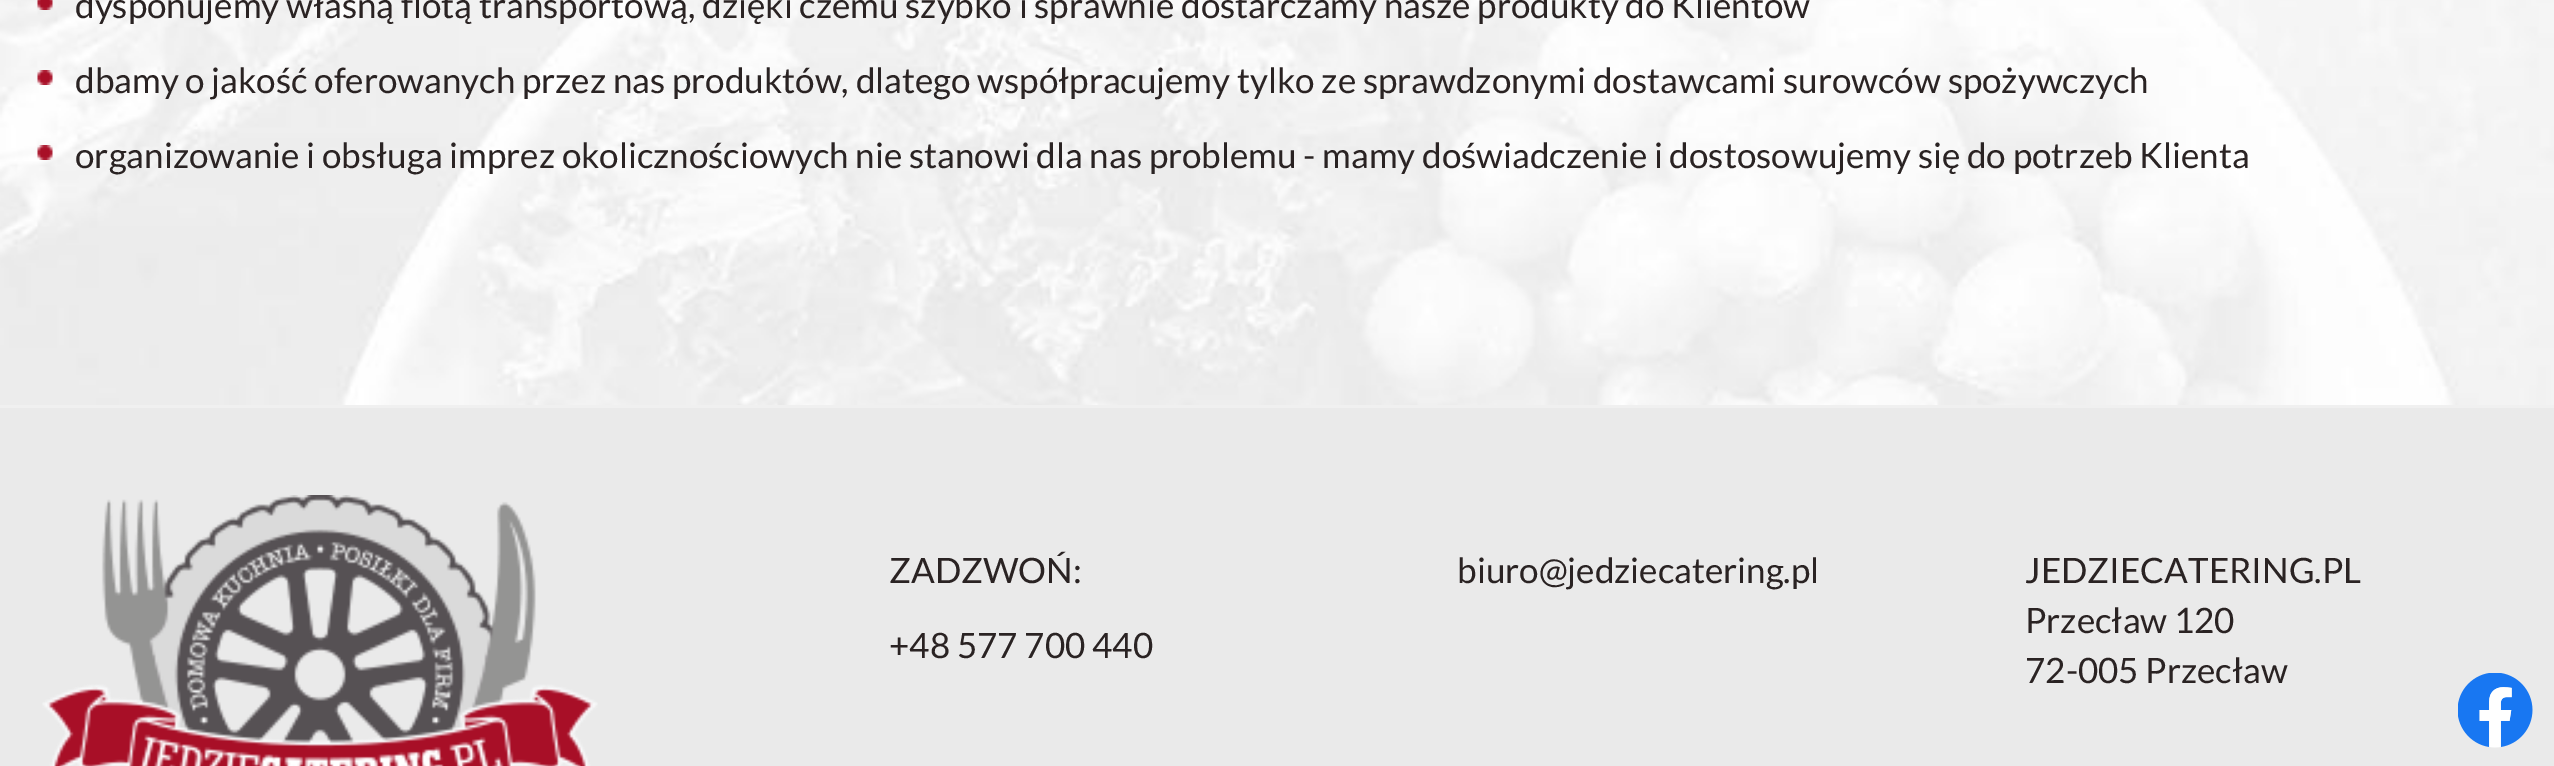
%!PS
<< /PageSize [2554 766] >> setpagedevice
/co { dup -16 bitshift 255 div exch dup -8 bitshift 255 and 255 div exch 255 and 255 div setrgbcolor } def
/fn { [ exch dup neg 0 0 3 -1 roll 0 0 ] selectfont } def
/tx { co fn moveto show } def
/bx { co rectfill } def
/im { 5 dict begin { /h /w /y /x /name } { exch def } forall
  gsave x y translate w h scale
  w h 8 [w 0 0 h 0 0] name (r) file false 3 colorimage grestore end } def
0 766 translate 1 -1 scale
4 setmiterlimit
0 0 2554 766 16#F0F0F0 bx
(media/1.raw) 0 0 2554 405 im
(media/2.raw) 37 0 16 10 im
(media/3.raw) 37 70 16 15 im
(media/4.raw) 37 145 16 15 im
0 408 2554 358 16#EAEAEA bx
(media/5.raw) 42 495 556 271 im
(media/6.raw) 2458 673 75 75 im
(dysponujemy własną flotą transportową, dzięki czemu szybko i sprawnie dostarczamy nasze produkty do Klientów) 75 18 /Lato-Regular 35 16#2A2323 tx
(dbamy o jakość oferowanych przez nas produktów, dlatego współpracujemy tylko ze sprawdzonymi dostawcami surowców spożywczych) 75 93 /Lato-Regular 35 16#2A2323 tx
(organizowanie i obsługa imprez okolicznościowych nie stanowi dla nas problemu - mamy doświadczenie i dostosowujemy się do potrzeb Klienta) 75 168 /Lato-Regular 35 16#2A2323 tx
(ZADZWOŃ:) 889 583 /Lato-Regular 35 16#2A2323 tx
(+48 577 700 440) 889 658 /Lato-Regular 35 16#2A2323 tx
(biuro@jedziecatering.pl) 1457 583 /Lato-Regular 35 16#2A2323 tx
(JEDZIECATERING.PL) 2025 583 /Lato-Regular 35 16#2A2323 tx
(Przecław 120) 2025 633 /Lato-Regular 35 16#2A2323 tx
(72-005 Przecław) 2025 683 /Lato-Regular 35 16#2A2323 tx
showpage
